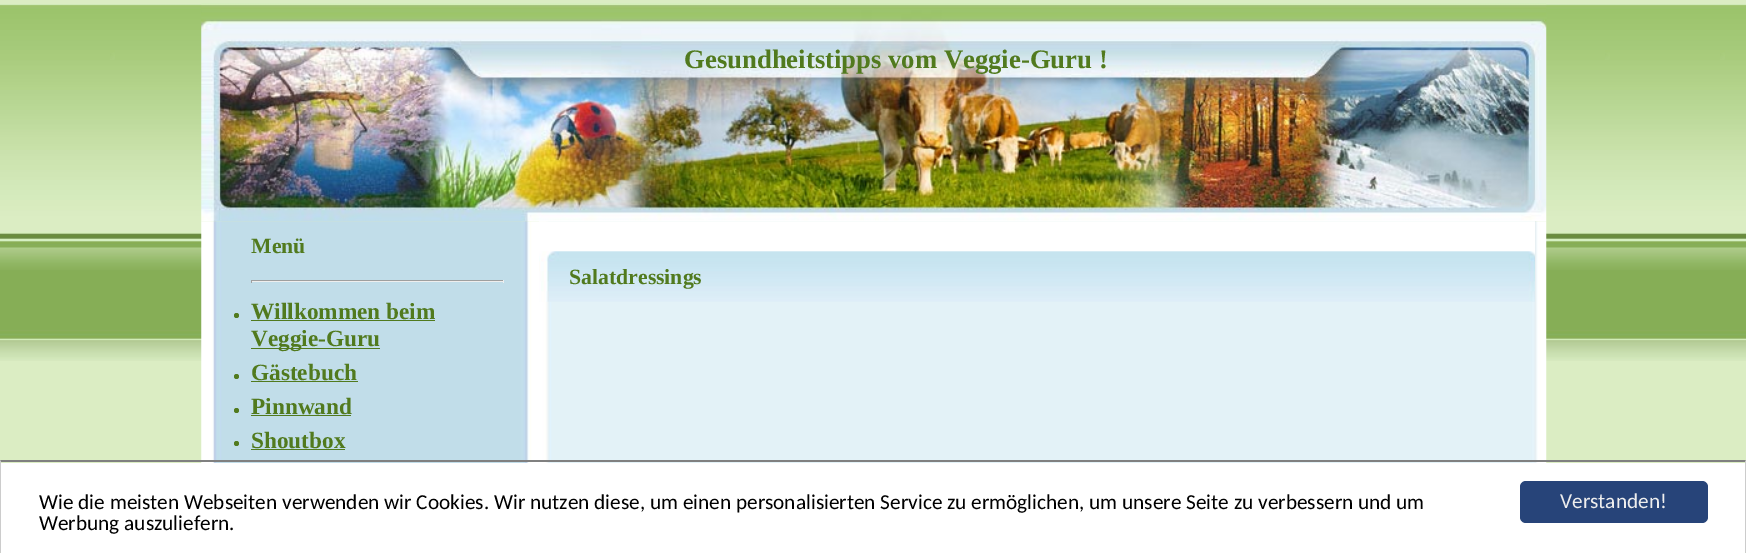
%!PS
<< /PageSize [1746 553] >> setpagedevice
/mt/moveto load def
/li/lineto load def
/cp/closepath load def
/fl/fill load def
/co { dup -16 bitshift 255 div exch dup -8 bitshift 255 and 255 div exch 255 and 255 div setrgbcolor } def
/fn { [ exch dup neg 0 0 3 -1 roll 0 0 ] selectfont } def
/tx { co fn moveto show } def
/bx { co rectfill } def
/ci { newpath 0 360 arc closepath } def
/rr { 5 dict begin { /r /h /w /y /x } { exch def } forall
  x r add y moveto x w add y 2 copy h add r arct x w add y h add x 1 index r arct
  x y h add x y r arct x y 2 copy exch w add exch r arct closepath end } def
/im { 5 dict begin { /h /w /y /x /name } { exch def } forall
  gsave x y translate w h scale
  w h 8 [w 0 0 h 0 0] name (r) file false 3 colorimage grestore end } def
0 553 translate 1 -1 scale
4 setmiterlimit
0 0 1746 553 16#DBEDC3 bx
(media/1.raw) 0 4 1746 357 im
(media/2.raw) 201 3 1346 219 im
(media/3.raw) 201 221 1346 242 im
251 280 253 1 16#9F9F9F bx
503 280 1 3 16#EEEEEE bx
251 281 253 1 16#EEEEEE bx
251 280 1 3 16#9F9F9F bx
16#517A1E co
236.5 315.5 2.5 ci fl
251 320 184 1 16#517A1E bx
251 348 129 1 16#517A1E bx
236.5 376.5 2.5 ci fl
251 381 107 1 16#517A1E bx
236.5 410.5 2.5 ci fl
251 415 100 1 16#517A1E bx
236.5 443.5 2.5 ci fl
251 449 94 1 16#517A1E bx
(media/4.raw) 539 221 996 81 im
1 463 1744 90 16#FFFFFF bx
16#808080 co
0 460 mt 1746 460 li 1745 462 li 1 462 li cp fl
16#CCCCCC co
1746 460 mt 1746 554 li 1745 552 li 1745 462 li cp fl
0 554 mt 0 460 li 1 462 li 1 552 li cp fl
16#274479 co
1520 481 188 42 6 rr fl
(Gesundheitstipps vom Veggie-Guru !) 684 68 /LiberationSerif-Bold 26.7 16#517A1E tx
(Menü) 251 253 /LiberationSerif-Bold 21.75 16#517A1E tx
(Willkommen beim) 251 319 /LiberationSerif-Bold 23.25 16#517A1E tx
(Veggie-Guru) 251 346 /LiberationSerif-Bold 23.25 16#517A1E tx
(Gästebuch) 251 380 /LiberationSerif-Bold 23.25 16#517A1E tx
(Pinnwand) 251 414 /LiberationSerif-Bold 23.25 16#517A1E tx
(Shoutbox) 251 448 /LiberationSerif-Bold 23.25 16#517A1E tx
(Salatdressings) 569 284 /LiberationSerif-Bold 21.75 16#517A1E tx
(Wie die meisten Webseiten verwenden wir Cookies. Wir nutzen diese, um einen personalisierten Service zu ermöglichen, um unsere Seite zu verbessern und um) 39 509 /Carlito-Regular 21.25 16#000000 tx
(Werbung auszuliefern.) 39 530 /Carlito-Regular 21.25 16#000000 tx
(Verstanden!) 1560 508 /Carlito-Regular 21.25 16#EEEEEE tx
showpage
